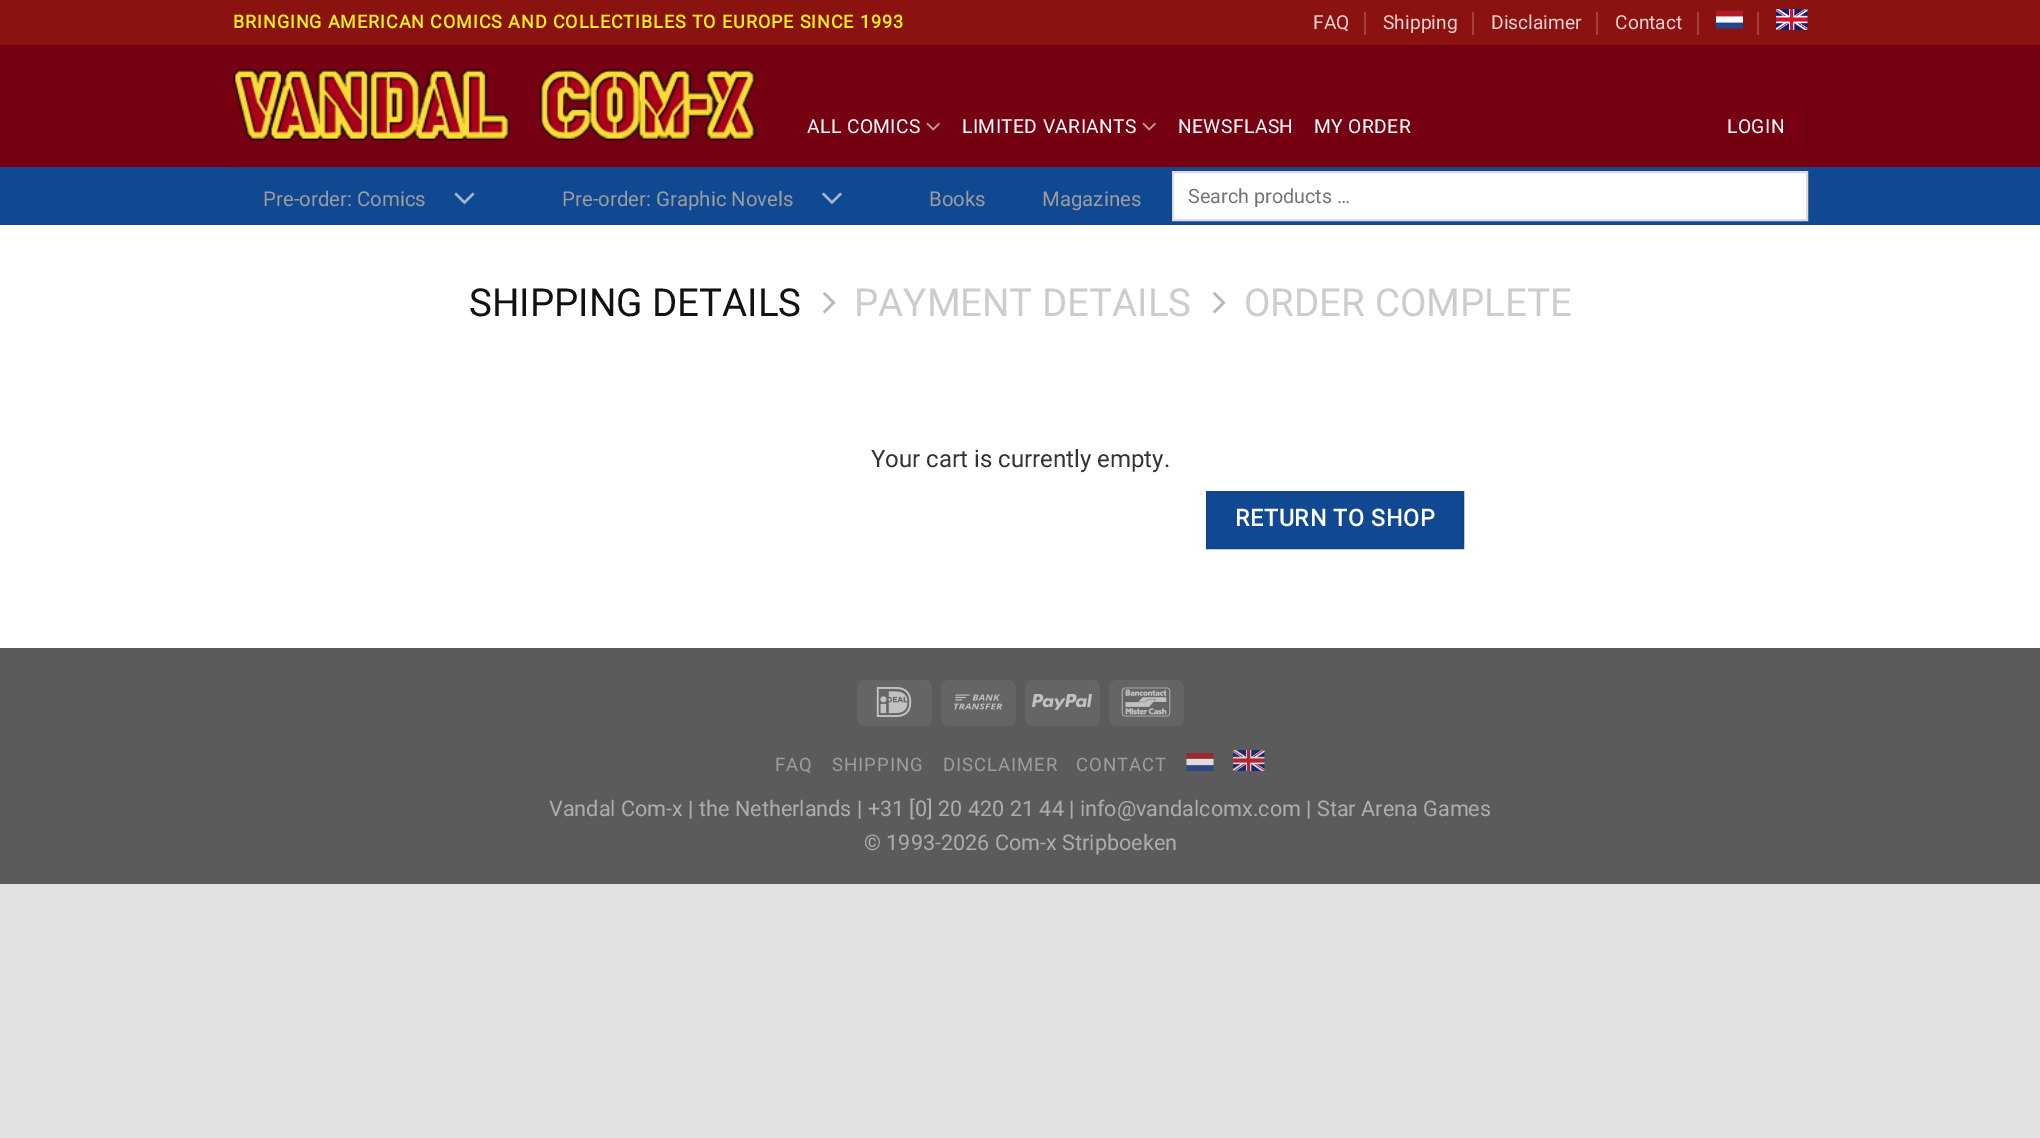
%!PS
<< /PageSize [2040 1138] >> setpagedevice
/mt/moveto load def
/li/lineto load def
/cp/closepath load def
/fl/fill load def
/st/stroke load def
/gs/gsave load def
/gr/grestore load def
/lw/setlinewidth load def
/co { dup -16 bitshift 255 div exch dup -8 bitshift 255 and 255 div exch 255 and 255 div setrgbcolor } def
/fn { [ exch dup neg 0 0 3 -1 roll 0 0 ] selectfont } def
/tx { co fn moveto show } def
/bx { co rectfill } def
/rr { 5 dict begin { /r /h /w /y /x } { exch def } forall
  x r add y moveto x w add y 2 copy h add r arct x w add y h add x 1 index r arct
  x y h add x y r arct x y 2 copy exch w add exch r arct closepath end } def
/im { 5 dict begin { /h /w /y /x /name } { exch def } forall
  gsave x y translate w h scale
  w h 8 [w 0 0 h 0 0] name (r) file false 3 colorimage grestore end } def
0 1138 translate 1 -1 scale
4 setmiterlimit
0 0 2040 1138 16#E3E2E2 bx
0 225 2040 423 16#FFFFFF bx
0 0 2040 45 16#8A1310 bx
1364 12 2 23 16#A14240 bx
1472 12 2 23 16#A14240 bx
1596 12 2 23 16#A14240 bx
1697 12 2 23 16#A14240 bx
(media/1.raw) 1716 10 27 19 im
1757 12 2 23 16#A14240 bx
(media/2.raw) 1776 9 32 21 im
0 45 2040 122 16#750011 bx
(media/3.raw) 233 68 524 73 im
(media/4.raw) 926 122 14 9 im
(media/4.raw) 1142 122 14 9 im
1806 105 2 45 16#69000F bx
0 167 2040 58 16#114892 bx
233 167 1575 2 16#154689 bx
(media/5.raw) 454 192 21 13 im
(media/6.raw) 822 192 20 12 im
16#FFFFFF co
1173 172 mt 1807 172 li 1807 220 li 1173 220 li cp gs fl gr
16#DDDDDD co
2 lw
st
(media/7.raw) 823 292 13 22 im
(media/7.raw) 1213 292 13 22 im
16#114892 co
1207 492 mt 1463 492 li 1463 548 li 1207 548 li cp gs fl gr
16#10448B co
st
0 648 2040 236 16#5B5B5B bx
16#656565 co
857 680 75 46 8 rr fl
(media/8.raw) 876 687 36 30 im
941 680 75 46 8 rr fl
(media/9.raw) 954 694 48 16 im
1025 680 75 46 8 rr fl
(media/10.raw) 1032 694 60 16 im
1109 680 75 46 8 rr fl
(media/11.raw) 1121 687 50 30 im
(media/12.raw) 1186 753 28 18 im
(media/13.raw) 1233 750 32 21 im
/Roboto-Bold 18 fn
16#EEEE22 co
233 28 mt .9 0 (BRINGING AMERICAN COMICS AND COLLECTIBLES TO EUROPE SINCE 1993) ashow
(FAQ) 1313 29 /Roboto-Regular 19.25 16#E8D0CF tx
(Shipping) 1383 29 /Roboto-Regular 19.25 16#E8D0CF tx
(Disclaimer) 1491 29 /Roboto-Regular 19.25 16#E8D0CF tx
(Contact) 1615 29 /Roboto-Regular 19.25 16#E8D0CF tx
16#FFFFFF co
807 133 mt .4 0 (ALL COMICS) ashow
962 133 mt .4 0 (LIMITED VARIANTS) ashow
1178 133 mt .4 0 (NEWSFLASH) ashow
1314 133 mt .4 0 (MY ORDER) ashow
1727 133 mt .4 0 (LOGIN) ashow
(Pre-order: Comics) 263 206 /Roboto-Regular 20.4 16#9D9D9D tx
(Pre-order: Graphic Novels) 562 206 /Roboto-Regular 20.4 16#9D9D9D tx
(Books) 929 206 /Roboto-Regular 20.4 16#9D9D9D tx
(Magazines) 1042 206 /Roboto-Regular 20.4 16#9D9D9D tx
(Search products …) 1188 203 /Roboto-Regular 19.75 16#757575 tx
(SHIPPING DETAILS) 469 316 /Roboto-Regular 38.5 16#111111 tx
(PAYMENT DETAILS) 854 316 /Roboto-Regular 38.5 16#CCCCCC tx
(ORDER COMPLETE) 1244 316 /Roboto-Regular 38.5 16#CCCCCC tx
(Your cart is currently empty.) 871 467 /Roboto-Regular 24 16#343434 tx
/Roboto-Bold 23.25 fn
16#FFFFFF co
1235 526 mt .75 0 (RETURN TO SHOP) ashow
/Roboto-Regular 18.5 fn
16#9D9D9D co
775 771 mt 1 0 (FAQ) ashow
832 771 mt 1 0 (SHIPPING) ashow
943 771 mt 1 0 (DISCLAIMER) ashow
1076 771 mt 1 0 (CONTACT) ashow
(Vandal Com-x | the Netherlands | +31 [0] 20 420 21 44 | info@vandalcomx.com | Star Arena Games) 549 816 /Roboto-Regular 21.6 16#ADADAD tx
(© 1993-2026 Com-x Stripboeken) 864 850 /Roboto-Regular 21.6 16#ADADAD tx
showpage
